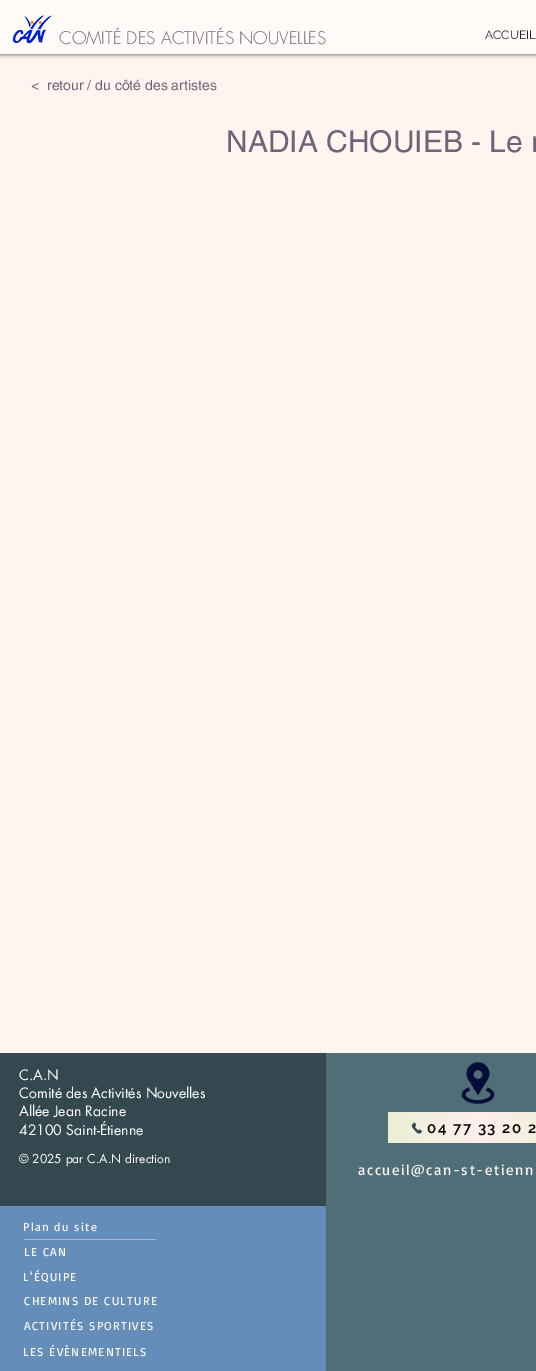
%!PS
<< /PageSize [536 1371] /PageUsesTransparency true >> setpagedevice
/mt/moveto load def
/li/lineto load def
/cp/closepath load def
/gs/gsave load def
/gr/grestore load def
/co { dup -16 bitshift 255 div exch dup -8 bitshift 255 and 255 div exch 255 and 255 div setrgbcolor } def
/fn { [ exch dup neg 0 0 3 -1 roll 0 0 ] selectfont } def
/tx { co fn moveto show } def
/bx { co rectfill } def
/al { dup .setfillconstantalpha .setstrokeconstantalpha } def
/rr { 5 dict begin { /r /h /w /y /x } { exch def } forall
  x r add y moveto x w add y 2 copy h add r arct x w add y h add x 1 index r arct
  x y h add x y r arct x y 2 copy exch w add exch r arct closepath end } def
/sh { 12 dict begin { /a /b /q /h /w /y /x } { exch def } forall gsave /was 0 def
  9 -2 -9 { dup b mul 4 div /e exch def 1 sub .425 mul 2.718 exch exp 1 add a .99 .min exch div /now exch def
    1 1 now sub 1 was sub div sub al /was now def
    w h .min e 2 mul add 0 gt { x e sub y e sub w e 2 mul add h e 2 mul add
      q e add b .6 mul add w h .min 2 div e add .min 0 .max rr fill } if } for grestore end } def
/im { 5 dict begin { /h /w /y /x /name } { exch def } forall
  gsave x y translate w h scale
  w h 8 [w 0 0 h 0 0] name (r) file false 3 colorimage grestore end } def
0 .pushpdf14devicefilter
0 1371 translate 1 -1 scale
4 setmiterlimit
0 0 536 1371 16#FFF5F0 bx
16#000000 co
0 0 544 54 0 2.5 .7 sh
0 0 536 54 16#FFFBF9 bx
(media/1.raw) 12 15 40 29 im
0 1053 326 153 16#34494F bx
326 1053 210 318 16#4F6E77 bx
(media/2.raw) 461 1062 34 42 im
gs 388 1112 mt 536 1112 li 536 1143 li 388 1143 li cp clip newpath 479 1128 translate 92 92 scale
<< /ShadingType 3 /ColorSpace /DeviceRGB /Coords [0 0 0 0 0 1] /Extend [true true] /Function << /FunctionType 2 /Domain [0 1] /C0 [1 .933 .933] /C1 [.922 .941 .831] /N 1 >> >> shfill gr
(media/3.raw) 411 1122 12 12 im
0 1206 326 165 16#648DBA bx
24 1239 132 1 16#A2BBD6 bx
(COMITÉ DES ACTIVITÉS NOUVELLES) 59 44 /futura-Light 17 16#726277 tx
(ACCUEIL) 485 39 /Raleway-Regular 12 16#262027 tx
(<  retour / du côté des artistes) 31 90 /helvetica-Regular 14 16#726277 tx
(NADIA CHOUIEB - Le r) 226 152 /helvetica-Regular 30 16#726277 tx
(C.A.N) 19 1080 /futura-Regular 14 16#FFFFFF tx
(Comité des Activités Nouvelles) 19 1098 /futura-Regular 14 16#FFFFFF tx
(Allée Jean Racine) 19 1116 /futura-Regular 14 16#FFFFFF tx
(42100 Saint-Étienne) 19 1135 /futura-Regular 14 16#FFFFFF tx
(© 2025 par C.A.N direction) 19 1163 /futura-Regular 12 16#FFFFFF tx
/Raleway-SemiBold 15 fn
16#000000 co
427 1133 mt 1.5 0 (04 77 33 20 2) ashow
/Basic-Regular 15 fn
16#F8F5EF co
358 1175 mt 1.5 0 (accueil@can-st-etienn) ashow
/Basic-Regular 12 fn
23 1231 mt 1.25 0 (Plan du site) ashow
24 1256 mt 1.25 0 (LE CAN) ashow
23 1281 mt 1.25 0 (L'ÉQUIPE) ashow
24 1305 mt 1.25 0 (CHEMINS DE CULTURE) ashow
24 1330 mt 1.25 0 (ACTIVITÉS SPORTIVES) ashow
23 1356 mt 1.25 0 (LES ÉVÈNEMENTIELS) ashow
.poppdf14devicefilter showpage
